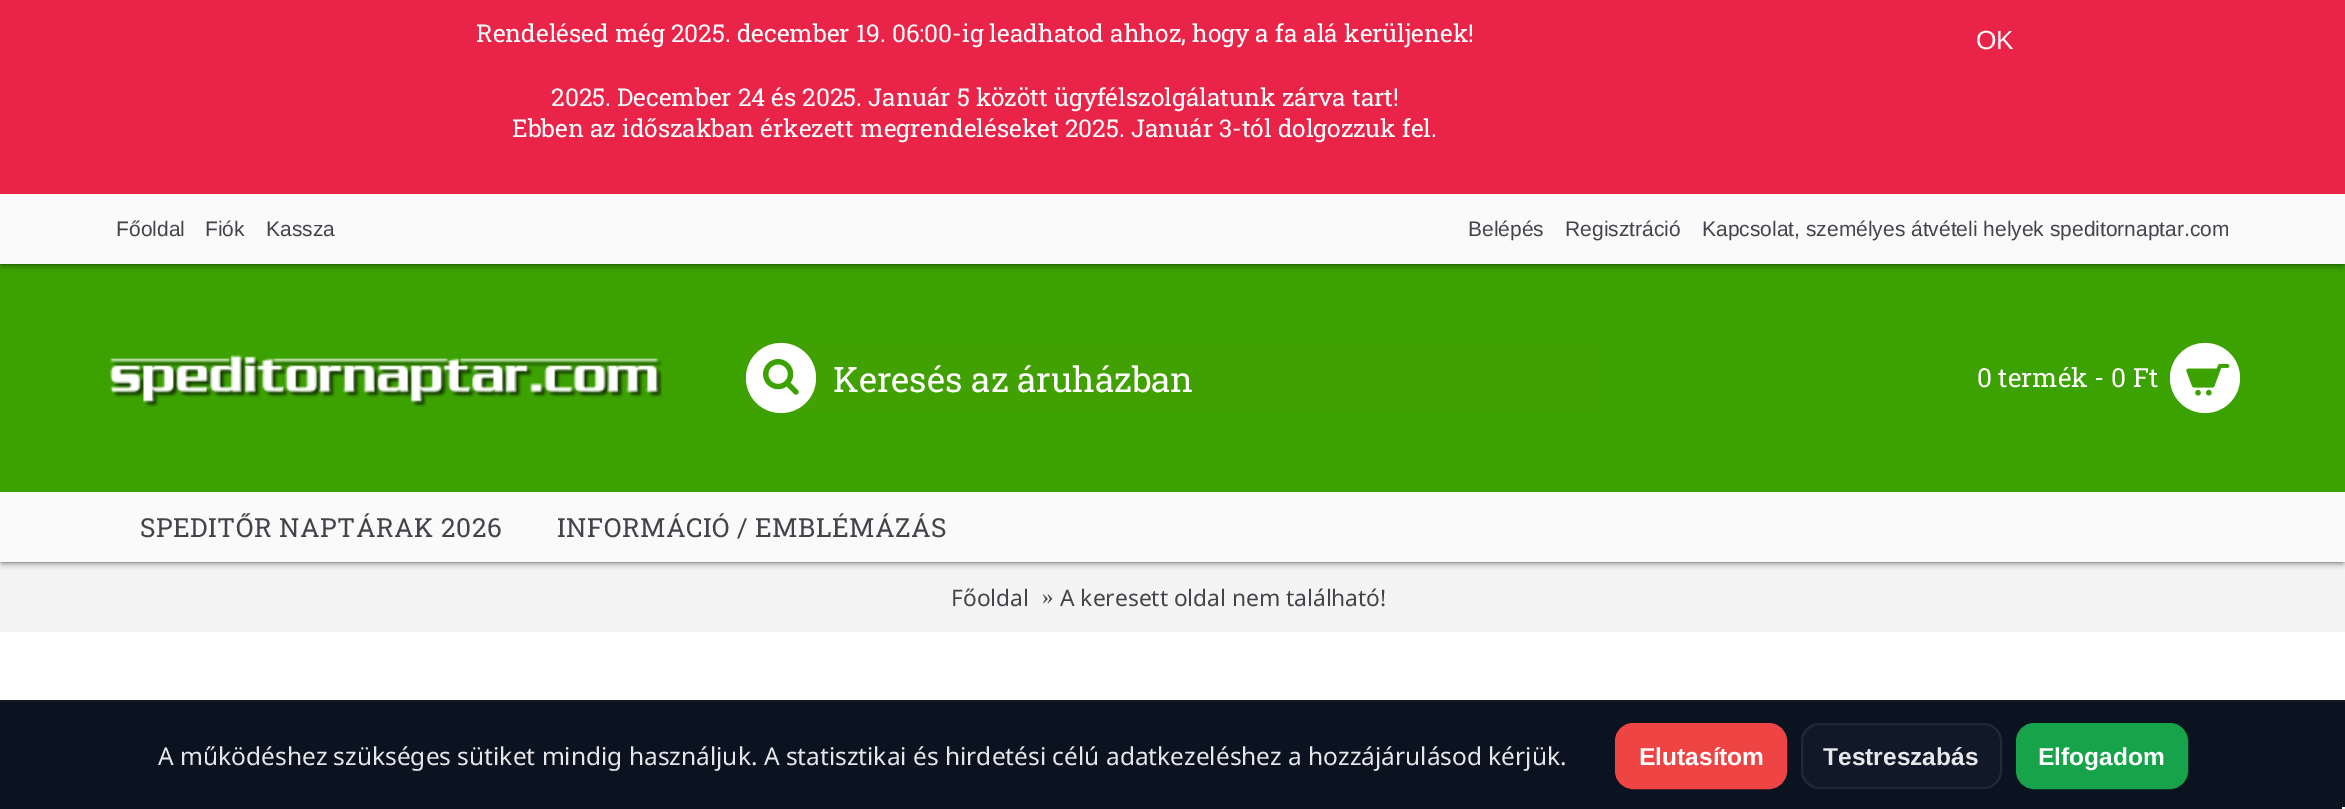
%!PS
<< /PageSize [2345 809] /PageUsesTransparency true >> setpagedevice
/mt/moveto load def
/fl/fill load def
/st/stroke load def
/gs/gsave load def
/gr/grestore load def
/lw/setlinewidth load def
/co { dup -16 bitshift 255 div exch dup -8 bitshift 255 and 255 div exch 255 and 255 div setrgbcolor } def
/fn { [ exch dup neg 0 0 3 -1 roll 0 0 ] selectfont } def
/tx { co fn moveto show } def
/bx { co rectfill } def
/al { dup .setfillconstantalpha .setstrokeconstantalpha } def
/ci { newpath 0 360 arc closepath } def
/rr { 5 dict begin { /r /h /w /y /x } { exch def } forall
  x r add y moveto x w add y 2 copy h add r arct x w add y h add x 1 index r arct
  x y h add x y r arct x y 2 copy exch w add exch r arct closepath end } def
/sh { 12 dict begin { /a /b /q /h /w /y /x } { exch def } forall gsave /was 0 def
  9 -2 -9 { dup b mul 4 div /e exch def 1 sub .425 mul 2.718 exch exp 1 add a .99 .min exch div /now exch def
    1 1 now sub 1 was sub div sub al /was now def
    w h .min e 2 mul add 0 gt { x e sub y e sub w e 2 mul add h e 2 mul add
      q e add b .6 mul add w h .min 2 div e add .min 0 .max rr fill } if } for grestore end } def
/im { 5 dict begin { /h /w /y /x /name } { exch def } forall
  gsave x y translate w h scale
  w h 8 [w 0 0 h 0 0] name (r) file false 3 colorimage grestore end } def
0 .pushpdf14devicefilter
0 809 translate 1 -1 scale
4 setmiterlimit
0 0 2345 809 16#FFFFFF bx
0 562 2345 70 16#F4F4F4 bx
16#000000 co
2 198 2341 364 0 3.5 .7 sh
0 264 2345 228 16#3BA201 bx
16#000000 co
2 198 2341 66 0 3.5 .7 sh
0 0 2345 194 16#EA2349 bx
0 194 2345 70 16#FAFAFA bx
(media/1.raw) 109 355 554 52 im
746 343 854 70 16#41A002 bx
16#FFFFFF co
781 378 35 ci fl
(media/2.raw) 763 359 36 36 im
2205 378 35 ci fl
(media/3.raw) 2186 363 44 33 im
0 492 2345 70 16#FAFAFA bx
0 702 2345 107 16#0B1220 bx
0 700 2345 2 16#111827 bx
16#EF4444 co
1616 724 170 64 17 rr gs fl gr
2 lw
st
16#111827 co
1802 724 199 64 17 rr gs fl gr
16#1F2937 co
st
16#16A34A co
2017 724 170 64 17 rr gs fl gr
st
2342 807 3 2 16#F5F5F5 bx
(Rendelésed még 2025. december 19. 06:00-ig leadhatod ahhoz, hogy a fa alá kerüljenek!) 476 42 /RobotoSlab-Regular 24.5 16#FFFFFF tx
(2025. December 24 és 2025. Január 5 között ügyfélszolgálatunk zárva tart!) 551 106 /RobotoSlab-Regular 24.5 16#FFFFFF tx
(Ebben az időszakban érkezett megrendeléseket 2025. Január 3-tól dolgozzuk fel.) 512 137 /RobotoSlab-Regular 24.5 16#FFFFFF tx
(OK) 1976 49 /LiberationSans-Regular 26.25 16#FFFFFF tx
(Főoldal) 116 236 /LiberationSans-Regular 21 16#444349 tx
(Fiók) 205 236 /LiberationSans-Regular 21 16#444349 tx
(Kassza) 266 236 /LiberationSans-Regular 21 16#444349 tx
(Belépés) 1468 236 /LiberationSans-Regular 21 16#444349 tx
(Regisztráció) 1565 236 /LiberationSans-Regular 21 16#444349 tx
(Kapcsolat, személyes átvételi helyek speditornaptar.com) 1702 236 /LiberationSans-Regular 21 16#444349 tx
(Keresés az áruházban) 833 392 /RobotoSlab-Regular 35 16#FFFFFF tx
(0 termék - 0 Ft) 1977 387 /RobotoSlab-Regular 26.25 16#FFFFFF tx
16#444349 co
140 537 mt .5 0 (SPEDITŐR NAPTÁRAK 2026) ashow
557 537 mt .5 0 (INFORMÁCIÓ / EMBLÉMÁZÁS) ashow
(Főoldal) 951 606 /NotoSans-Regular 22.75 16#444349 tx
(») 1042 604 /LiberationSerif-Regular 22.75 16#444349 tx
(A keresett oldal nem található!) 1060 606 /NotoSans-Regular 22.75 16#444349 tx
(A működéshez szükséges sütiket mindig használjuk. A statisztikai és hirdetési célú adatkezeléshez a hozzájárulásod kérjük.) 158 765 /NotoSans-Regular 24.5 16#E5E7EB tx
(Elutasítom) 1639 765 /LiberationSans-Bold 24.5 16#FFFFFF tx
(Testreszabás) 1823 765 /LiberationSans-Bold 24.5 16#E5E7EB tx
(Elfogadom) 2038 765 /LiberationSans-Bold 24.5 16#FFFFFF tx
.poppdf14devicefilter showpage
